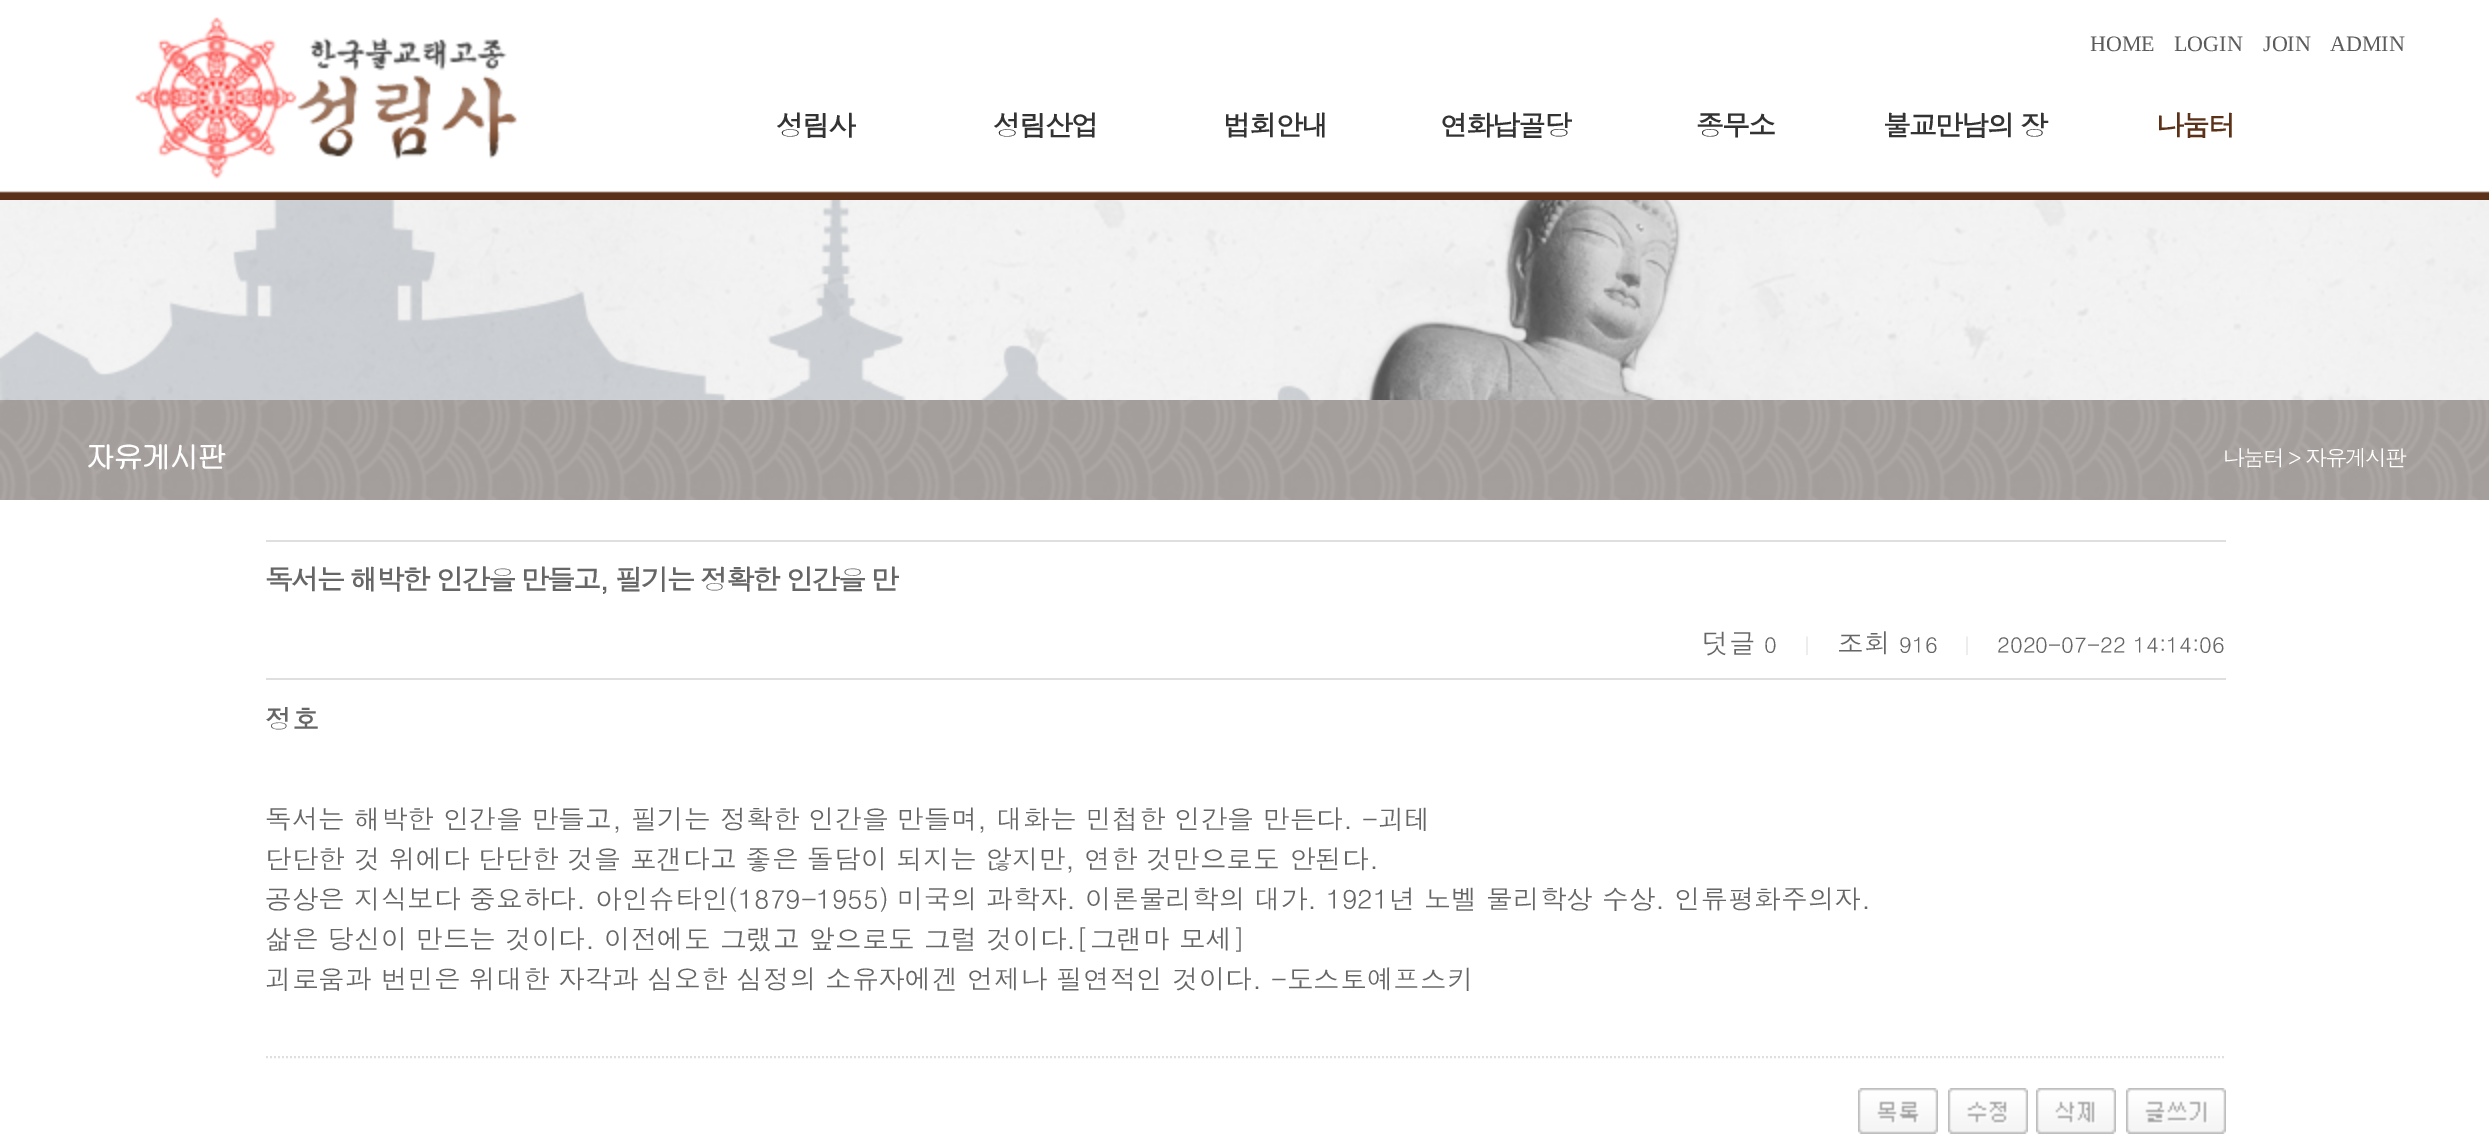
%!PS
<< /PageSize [2489 1142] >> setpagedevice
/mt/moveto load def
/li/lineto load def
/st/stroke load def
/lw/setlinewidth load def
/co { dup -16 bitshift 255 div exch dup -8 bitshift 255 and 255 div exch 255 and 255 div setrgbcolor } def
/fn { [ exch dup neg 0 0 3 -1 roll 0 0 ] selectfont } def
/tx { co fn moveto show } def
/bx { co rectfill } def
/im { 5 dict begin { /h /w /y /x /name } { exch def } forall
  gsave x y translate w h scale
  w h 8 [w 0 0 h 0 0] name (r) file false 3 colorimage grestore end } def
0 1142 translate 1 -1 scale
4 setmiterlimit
0 0 2489 1142 16#FFFFFF bx
(media/1.raw) 0 0 2489 200 im
(media/2.raw) 135 17 383 162 im
(media/3.raw) 0 200 2489 200 im
(media/4.raw) 0 400 2489 100 im
266 540 1960 2 16#DFDFDF bx
266 678 1960 2 16#DFDFDF bx
2 lw
[2 2] 0 setdash
266 1057 mt 2226 1057 li st
(media/5.raw) 1858 1088 80 46 im
(media/6.raw) 1948 1088 80 46 im
(media/7.raw) 2036 1088 80 46 im
(media/8.raw) 2126 1088 100 46 im
(HOME) 2090 51 /LiberationSerif-Regular 22 16#5B5B5B tx
(LOGIN) 2174 51 /LiberationSerif-Regular 22 16#5B5B5B tx
(JOIN) 2263 51 /LiberationSerif-Regular 22 16#5B5B5B tx
(ADMIN) 2330 51 /LiberationSerif-Regular 22 16#5B5B5B tx
/Dotum-Bold 28 fn
16#333333 co
776 136 mt -2 0 (성림사) ashow
993 136 mt -2 0 (성림산업) ashow
1223 136 mt -2 0 (법회안내) ashow
1440 136 mt -2 0 (연화납골당) ashow
1696 136 mt -2 0 (종무소) ashow
1883 136 mt -2 0 (불교만남의 장) ashow
16#5B3118 co
2156 136 mt -2 0 (나눔터) ashow
/Gulim-Bold 30 fn
16#FFFFFF co
85 468 mt -2 0 (자유게시판) ashow
/Dotum-Regular 22 fn
2223 466 mt -2 0 (나눔터 > 자유게시판) ashow
/Dotum-Bold 28 fn
16#666666 co
265 590 mt -2 0 (독서는 해박한 인간을 만들고, 필기는 정확한 인간을 만) ashow
(덧글) 1702 653 /Dotum-Regular 26.67 16#666666 tx
(0) 1764 653 /Dotum-Regular 22 16#666666 tx
(|) 1802 653 /Dotum-Regular 20 16#DFDFDF tx
(조회) 1837 653 /Dotum-Regular 26.67 16#666666 tx
(916) 1899 653 /Dotum-Regular 22 16#666666 tx
(|) 1962 653 /Dotum-Regular 20 16#DFDFDF tx
(2020-07-22 14:14:06) 1997 653 /Dotum-Regular 22 16#666666 tx
(정호) 265 729 /Dotum-Bold 26.67 16#666666 tx
(독서는 해박한 인간을 만들고, 필기는 정확한 인간을 만들며, 대화는 민첩한 인간을 만든다. -괴테) 265 829 /Dotum-Regular 26.67 16#666666 tx
(단단한 것 위에다 단단한 것을 포갠다고 좋은 돌담이 되지는 않지만, 연한 것만으로도 안된다.) 265 869 /Dotum-Regular 26.67 16#666666 tx
(공상은 지식보다 중요하다. 아인슈타인\(1879-1955\) 미국의 과학자. 이론물리학의 대가. 1921년 노벨 물리학상 수상. 인류평화주의자.) 265 909 /Dotum-Regular 26.67 16#666666 tx
(삶은 당신이 만드는 것이다. 이전에도 그랬고 앞으로도 그럴 것이다.[그랜마 모세]) 265 949 /Dotum-Regular 26.67 16#666666 tx
(괴로움과 번민은 위대한 자각과 심오한 심정의 소유자에겐 언제나 필연적인 것이다. -도스토예프스키) 265 989 /Dotum-Regular 26.67 16#666666 tx
showpage
